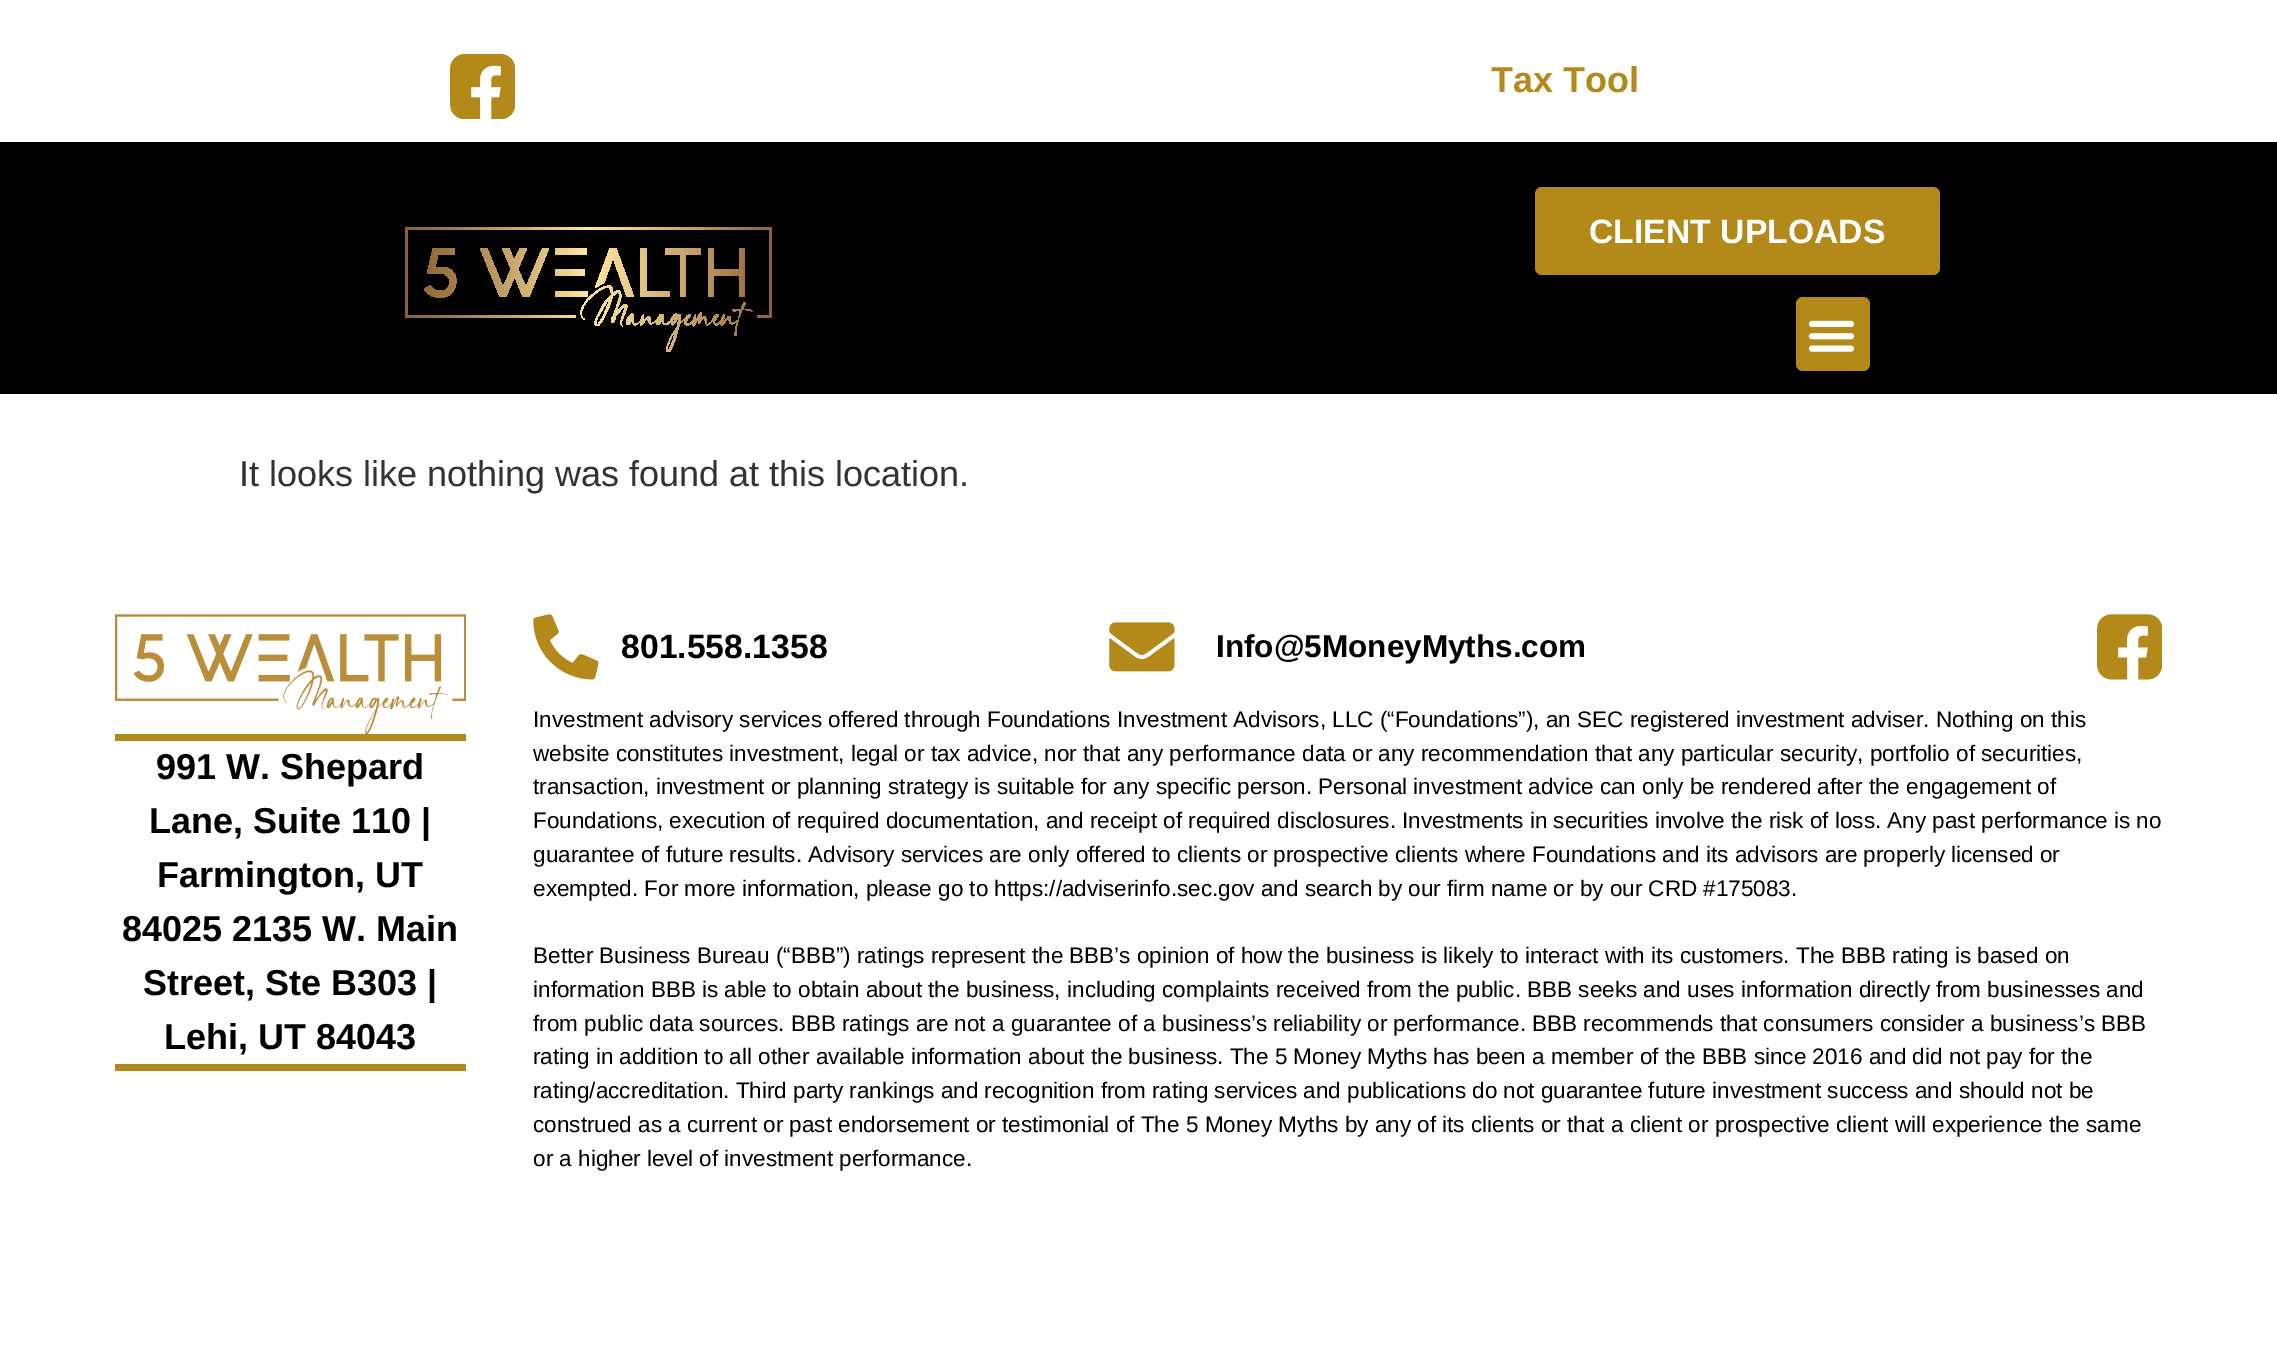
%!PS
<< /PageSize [2277 1359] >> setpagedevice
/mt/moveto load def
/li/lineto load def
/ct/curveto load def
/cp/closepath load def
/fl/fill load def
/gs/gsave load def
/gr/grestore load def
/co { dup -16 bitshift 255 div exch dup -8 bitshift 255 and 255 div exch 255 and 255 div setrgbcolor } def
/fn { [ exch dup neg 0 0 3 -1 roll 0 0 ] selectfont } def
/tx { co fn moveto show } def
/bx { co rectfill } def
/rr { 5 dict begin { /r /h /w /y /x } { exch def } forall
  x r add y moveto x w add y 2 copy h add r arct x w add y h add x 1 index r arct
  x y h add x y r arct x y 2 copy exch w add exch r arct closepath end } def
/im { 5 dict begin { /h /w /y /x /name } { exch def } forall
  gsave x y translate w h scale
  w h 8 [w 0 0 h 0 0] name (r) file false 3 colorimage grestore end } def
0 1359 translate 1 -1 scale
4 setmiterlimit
0 0 2277 1359 16#FFFFFF bx
(media/1.raw) 450 54 65 65 im
0 142 2277 252 16#000000 bx
gs 744 302 mt 748 302 742 308 743 309 ct 751 310 li 751 311 753 312 752 311 ct 746 310 li 742 310 li 739 318 li 738 323 736 327 736 332 ct 736 333 737 336 736 336 ct 734 336 735 333 735 332 ct 737 321 li 736 322 734 323 733 324 ct 728 325 730 320 728 318 ct 727 319 720 332 721 321 ct 718 325 li 715 326 713 324 713 321 ct 710 324 li 708 325 707 326 706 324 ct 704 318 li 703 317 699 325 698 323 ct 700 315 li 699 316 li 698 318 695 327 693 326 ct 692 326 li 693 322 li 691 324 li 688 326 685 326 684 322 ct 684 321 685 319 683 321 ct 680 324 li 678 330 li 677 334 673 349 669 352 ct 667 352 li 664 349 672 335 673 333 ct 677 327 li 679 317 li 674 324 li 672 327 671 324 671 321 ct 670 323 668 325 666 325 ct 665 325 li 663 325 663 322 662 321 ct 662 320 li 662 320 660 324 658 325 ct 657 325 656 325 656 324 ct 656 321 li 656 321 653 325 650 324 ct 647 322 648 317 647 318 ct 642 325 li 640 327 640 323 640 322 ct 641 317 636 332 632 321 ct 632 320 631 322 631 322 ct 630 323 629 325 627 325 ct 626 325 626 323 626 322 ct 628 317 li 631 314 li 635 312 633 322 634 323 ct 634 324 635 324 636 324 ct 642 323 641 316 643 315 ct 643 314 li 645 315 643 320 643 321 ct 642 323 li 647 317 li 649 316 li 652 317 648 324 652 323 ct 656 322 657 319 659 316 ct 660 314 664 313 664 316 ct 664 323 li 665 326 669 322 670 321 ct 672 319 673 313 677 314 ct 677 315 li 682 311 680 320 680 322 ct 680 323 li 684 319 li 686 318 686 316 688 315 ct 690 314 li 692 315 689 318 688 319 ct 687 321 686 320 686 323 ct 687 324 li 690 323 li 692 322 694 320 694 317 ct 695 315 li 695 314 696 315 696 316 ct 695 323 li 699 314 li 700 313 701 312 702 314 ct 700 321 li 699 324 704 313 706 318 ct 707 321 704 328 711 322 ct 713 318 li 714 317 716 314 718 314 ct 720 315 718 317 717 318 ct 716 320 714 320 715 323 ct 716 324 li 718 323 li 723 320 721 318 723 315 ct 724 314 725 315 725 315 ct 723 323 li 727 318 li 727 317 728 316 729 316 ct 732 317 730 321 731 322 ct 732 325 737 321 738 320 ct 738 319 741 311 739 311 ct 737 310 734 312 733 311 ct 731 309 737 309 737 309 ct 741 309 li cp 405 227 mt 772 227 li 772 318 li 757 318 li 757 315 li 769 315 li 769 230 li 408 230 li 408 315 li 576 315 li 576 318 li 405 318 li cp 571 248 mt 587 248 li 587 255 li 555 255 li 555 248 li cp 433 248 mt 455 248 li 455 255 li 438 255 li 435 268 li 438 267 li 445 267 li 465 272 457 303 435 297 ct 430 296 427 293 424 289 ct 429 286 li 431 285 431 288 434 289 ct 437 291 441 292 445 290 ct 455 285 449 269 434 274 ct 426 273 427 275 429 265 ct cp 542 248 mt 549 248 li 529 297 li 523 297 li 516 280 li 516 280 515 277 514 278 ct 506 297 li 500 297 li 480 248 li 487 248 li 503 287 li 511 269 li 502 248 li 509 248 li 514 260 li 520 248 li 527 248 li 518 269 li 526 287 li 542 249 li cp 643 248 mt 647 248 li 647 291 li 670 291 li 670 297 li 640 297 li 640 248 li cp 683 248 mt 701 248 li 701 255 li 686 255 li 686 297 li 680 297 li 680 255 li 665 255 li 665 248 li cp 742 248 mt 745 248 li 745 297 li 739 297 li 739 276 li 714 276 li 714 297 li 708 297 li 708 248 li 714 248 li 714 269 li 739 269 li 739 248 li cp 610 248 mt 616 248 li 634 297 li 627 297 li 613 258 li 604 283 li 601 284 598 286 595 288 ct cp 555 269 mt 585 269 li 585 276 li 555 276 li cp 607 286 mt 612 284 613 290 613 293 ct 622 286 622 296 620 302 ct 614 317 li 619 309 li 623 305 li 626 303 628 306 627 308 ct 622 321 li 621 323 621 325 623 326 ct 617 327 625 309 625 307 ct 624 307 li 621 309 619 313 616 316 ct 616 317 614 323 612 323 ct 611 322 li 611 320 612 317 613 316 ct 616 308 li 616 307 623 291 617 293 ct 613 296 li 611 302 li 609 308 603 322 598 326 ct 596 326 li 591 324 603 305 604 303 ct 611 295 li 613 277 592 296 588 300 ct 585 303 583 307 582 311 ct 581 313 581 316 583 318 ct 585 319 li 585 319 585 320 585 320 ct 570 312 597 287 607 286 ct cp 555 291 mt 588 291 li 588 297 li 555 297 li cp 596 325 mt 600 327 610 300 610 298 ct 609 298 599 315 598 317 ct 597 319 596 321 596 324 ct cp 715 318 mt 717 316 li cp 687 317 mt 686 319 689 315 688 316 ct cp 658 323 mt 662 317 li 662 316 662 316 661 316 ct 660 318 li cp 628 322 mt 628 323 li 628 322 634 314 631 317 ct 629 318 628 320 628 322 ct cp 672 322 mt 672 325 676 318 677 316 ct 674 317 672 320 672 322 ct cp 668 346 mt 667 350 li 668 350 li 672 347 675 333 676 329 ct 672 336 li cp eoclip newpath
<< /ShadingType 2 /ColorSpace /DeviceRGB /Coords [407 289 774 289] /Extend [true true] /Function << /FunctionType 3 /Domain [0 1] /Functions [<< /FunctionType 2 /Domain [0 1] /C0 [.549 .38 .2] /C1 [.596 .435 .243] /N 1 >> << /FunctionType 2 /Domain [0 1] /C0 [.596 .435 .243] /C1 [.725 .584 .365] /N 1 >> << /FunctionType 2 /Domain [0 1] /C0 [.725 .584 .365] /C1 [.933 .824 .557] /N 1 >> << /FunctionType 2 /Domain [0 1] /C0 [.933 .824 .557] /C1 [1 .902 .62] /N 1 >> << /FunctionType 2 /Domain [0 1] /C0 [1 .902 .62] /C1 [.945 .839 .569] /N 1 >> << /FunctionType 2 /Domain [0 1] /C0 [.945 .839 .569] /C1 [.812 .682 .443] /N 1 >> << /FunctionType 2 /Domain [0 1] /C0 [.812 .682 .443] /C1 [.596 .431 .243] /N 1 >> << /FunctionType 2 /Domain [0 1] /C0 [.596 .431 .243] /C1 [.549 .38 .2] /N 1 >>] /Bounds [.08 .23 .43 .49 .57 .73 .95] /Encode [0 1 0 1 0 1 0 1 0 1 0 1 0 1 0 1] >> >> shfill gr
16#B38A19 co
1535 187 405 88 7 rr fl
1796 297 74 74 7 rr fl
(media/2.raw) 1808 320 47 32 im
(media/3.raw) 115 614 351 120 im
115 734 351 7 16#B38A19 bx
115 1064 351 7 16#B38A19 bx
(media/4.raw) 533 614 66 66 im
(media/5.raw) 1109 622 66 50 im
(media/6.raw) 2097 614 65 66 im
(Tax Tool) 1491 92 /LiberationSans-Bold 36 16#B38A19 tx
(CLIENT UPLOADS) 1589 243 /LiberationSans-Bold 33.75 16#FFFFFF tx
(It looks like nothing was found at this location.) 239 486 /LiberationSans-Regular 36 16#333333 tx
(991 W. Shepard) 156 779 /LiberationSans-Bold 36 16#000000 tx
(Lane, Suite 110 |) 149 833 /LiberationSans-Bold 36 16#000000 tx
(Farmington, UT) 157 887 /LiberationSans-Bold 36 16#000000 tx
(84025 2135 W. Main) 122 941 /LiberationSans-Bold 36 16#000000 tx
(Street, Ste B303 |) 143 995 /LiberationSans-Bold 36 16#000000 tx
(Lehi, UT 84043) 164 1049 /LiberationSans-Bold 36 16#000000 tx
(801.558.1358) 621 658 /LiberationSans-Bold 33.75 16#000000 tx
(Info@5MoneyMyths.com) 1216 657 /LiberationSans-Bold 31.5 16#000000 tx
(Investment advisory services offered through Foundations Investment Advisors, LLC \(“Foundations”\), an SEC registered investment adviser. Nothing on this) 533 727 /LiberationSans-Regular 22.5 16#000000 tx
(website constitutes investment, legal or tax advice, nor that any performance data or any recommendation that any particular security, portfolio of securities,) 533 761 /LiberationSans-Regular 22.5 16#000000 tx
(transaction, investment or planning strategy is suitable for any specific person. Personal investment advice can only be rendered after the engagement of) 533 794 /LiberationSans-Regular 22.5 16#000000 tx
(Foundations, execution of required documentation, and receipt of required disclosures. Investments in securities involve the risk of loss. Any past performance is no) 533 828 /LiberationSans-Regular 22.5 16#000000 tx
(guarantee of future results. Advisory services are only offered to clients or prospective clients where Foundations and its advisors are properly licensed or) 533 862 /LiberationSans-Regular 22.5 16#000000 tx
(exempted. For more information, please go to https://adviserinfo.sec.gov and search by our firm name or by our CRD #175083.) 533 896 /LiberationSans-Regular 22.5 16#000000 tx
(Better Business Bureau \(“BBB”\) ratings represent the BBB’s opinion of how the business is likely to interact with its customers. The BBB rating is based on) 533 963 /LiberationSans-Regular 22.5 16#000000 tx
(information BBB is able to obtain about the business, including complaints received from the public. BBB seeks and uses information directly from businesses and) 533 997 /LiberationSans-Regular 22.5 16#000000 tx
(from public data sources. BBB ratings are not a guarantee of a business’s reliability or performance. BBB recommends that consumers consider a business’s BBB) 533 1031 /LiberationSans-Regular 22.5 16#000000 tx
(rating in addition to all other available information about the business. The 5 Money Myths has been a member of the BBB since 2016 and did not pay for the) 533 1064 /LiberationSans-Regular 22.5 16#000000 tx
(rating/accreditation. Third party rankings and recognition from rating services and publications do not guarantee future investment success and should not be) 533 1098 /LiberationSans-Regular 22.5 16#000000 tx
(construed as a current or past endorsement or testimonial of The 5 Money Myths by any of its clients or that a client or prospective client will experience the same) 533 1132 /LiberationSans-Regular 22.5 16#000000 tx
(or a higher level of investment performance.) 533 1166 /LiberationSans-Regular 22.5 16#000000 tx
showpage
